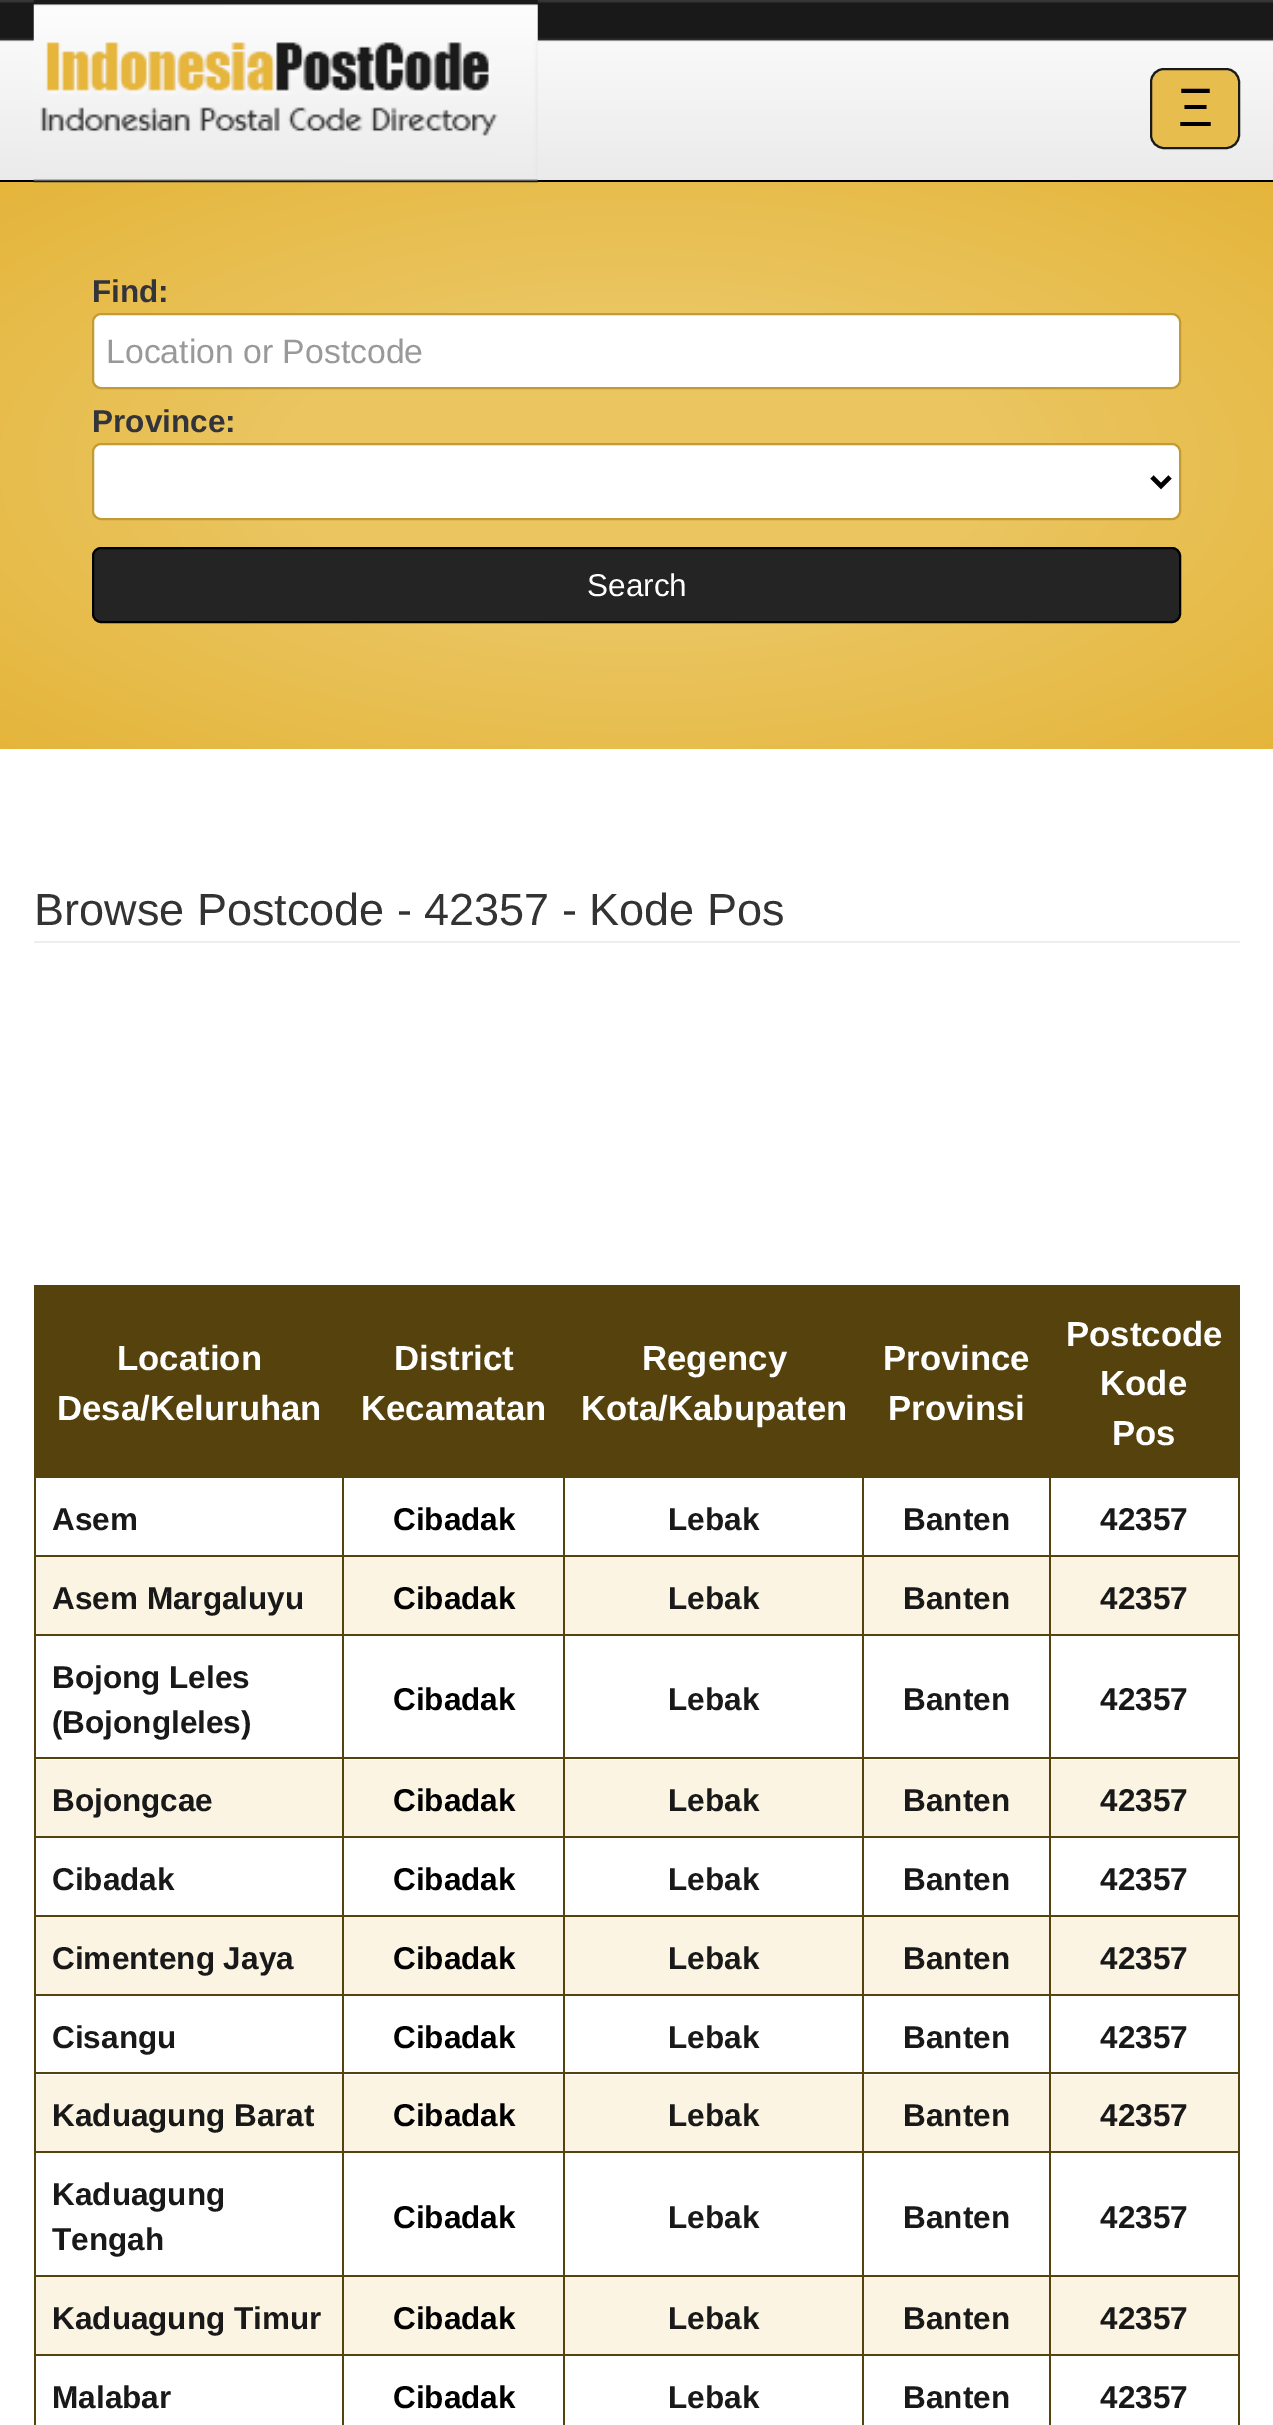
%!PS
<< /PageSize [1273 2425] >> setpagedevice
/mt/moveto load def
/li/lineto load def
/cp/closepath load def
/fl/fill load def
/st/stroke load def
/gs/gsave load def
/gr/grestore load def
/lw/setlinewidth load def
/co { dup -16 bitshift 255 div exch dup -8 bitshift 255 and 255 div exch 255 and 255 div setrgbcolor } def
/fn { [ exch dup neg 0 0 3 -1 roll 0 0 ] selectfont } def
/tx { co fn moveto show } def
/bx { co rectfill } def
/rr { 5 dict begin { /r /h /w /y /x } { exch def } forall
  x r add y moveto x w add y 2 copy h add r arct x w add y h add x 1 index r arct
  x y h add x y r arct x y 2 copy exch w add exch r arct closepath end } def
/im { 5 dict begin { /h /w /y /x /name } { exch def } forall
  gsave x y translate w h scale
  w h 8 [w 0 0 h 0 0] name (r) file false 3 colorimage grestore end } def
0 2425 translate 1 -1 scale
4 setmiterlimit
0 0 1273 2425 16#FFFFFF bx
(media/1.raw) 0 0 1273 180 im
0 180 1273 2 16#000000 bx
gs 0 182 mt 1273 182 li 1273 749 li 0 749 li cp clip newpath 637 466 translate 901 401 scale
<< /ShadingType 3 /ColorSpace /DeviceRGB /Coords [0 0 0 0 0 1] /Extend [true true] /Function << /FunctionType 3 /Domain [0 1] /Functions [<< /FunctionType 2 /Domain [0 1] /C0 [.918 .773 .376] /C1 [.918 .773 .376] /N 1 >> << /FunctionType 2 /Domain [0 1] /C0 [.918 .773 .376] /C1 [.898 .71 .231] /N 1 >>] /Bounds [.4] /Encode [0 1 0 1] >> >> shfill gr
(media/2.raw) 33 0 505 183 im
16#E7BD4D co
1151 69 88 79 13 rr gs fl gr
16#191919 co
2 lw
st
16#FFFFFF co
93 314 1087 74 8 rr gs fl gr
16#C29B34 co
st
16#FFFFFF co
93 444 1087 75 8 rr gs fl gr
16#C29B34 co
st
16#000000 co
4.5 lw
1152 477 mt 1161 486 li 1170 477 li st
16#242424 co
93 548 1087 74 8 rr gs fl gr
16#000000 co
2 lw
st
34 941 1206 2 16#EEEEEE bx
36 1287 308 189 16#56420C bx
34 1285 1206 2 16#56420C bx
1049 1555 191 2 16#56420C bx
36 1557 1202 77 16#FBF4E3 bx
1049 1634 191 2 16#56420C bx
1049 1757 191 2 16#56420C bx
36 1760 1202 76 16#FBF4E3 bx
1049 1836 191 2 16#56420C bx
1049 1915 191 2 16#56420C bx
36 1917 1202 77 16#FBF4E3 bx
1049 1994 191 2 16#56420C bx
1049 2072 191 2 16#56420C bx
36 2075 1202 76 16#FBF4E3 bx
1049 2151 191 2 16#56420C bx
1049 2275 191 2 16#56420C bx
36 2277 1202 77 16#FBF4E3 bx
1049 2354 191 2 16#56420C bx
1049 2354 2 71 16#56420C bx
862 2354 189 2 16#56420C bx
1049 2275 2 81 16#56420C bx
862 2275 189 2 16#56420C bx
1049 2151 2 126 16#56420C bx
862 2151 189 2 16#56420C bx
1049 2072 2 81 16#56420C bx
862 2072 189 2 16#56420C bx
1049 1994 2 81 16#56420C bx
862 1994 189 2 16#56420C bx
1049 1915 2 81 16#56420C bx
862 1915 189 2 16#56420C bx
1049 1836 2 81 16#56420C bx
862 1836 189 2 16#56420C bx
1049 1757 2 81 16#56420C bx
862 1757 189 2 16#56420C bx
1049 1634 2 126 16#56420C bx
862 1634 189 2 16#56420C bx
1049 1555 2 81 16#56420C bx
862 1555 189 2 16#56420C bx
862 2354 2 71 16#56420C bx
563 2354 301 2 16#56420C bx
862 2275 2 81 16#56420C bx
563 2275 301 2 16#56420C bx
862 2151 2 126 16#56420C bx
563 2151 301 2 16#56420C bx
862 2072 2 81 16#56420C bx
563 2072 301 2 16#56420C bx
862 1994 2 81 16#56420C bx
563 1994 301 2 16#56420C bx
862 1915 2 81 16#56420C bx
563 1915 301 2 16#56420C bx
862 1836 2 81 16#56420C bx
563 1836 301 2 16#56420C bx
862 1757 2 81 16#56420C bx
563 1757 301 2 16#56420C bx
862 1634 2 126 16#56420C bx
563 1634 301 2 16#56420C bx
862 1555 2 81 16#56420C bx
563 1555 301 2 16#56420C bx
563 2354 2 71 16#56420C bx
342 2354 223 2 16#56420C bx
563 2275 2 81 16#56420C bx
342 2275 223 2 16#56420C bx
563 2151 2 126 16#56420C bx
342 2151 223 2 16#56420C bx
563 2072 2 81 16#56420C bx
342 2072 223 2 16#56420C bx
563 1994 2 81 16#56420C bx
342 1994 223 2 16#56420C bx
563 1915 2 81 16#56420C bx
342 1915 223 2 16#56420C bx
563 1836 2 81 16#56420C bx
342 1836 223 2 16#56420C bx
563 1757 2 81 16#56420C bx
342 1757 223 2 16#56420C bx
563 1634 2 126 16#56420C bx
342 1634 223 2 16#56420C bx
563 1555 2 81 16#56420C bx
342 1555 223 2 16#56420C bx
342 2354 2 71 16#56420C bx
34 2354 310 2 16#56420C bx
342 2275 2 81 16#56420C bx
34 2275 310 2 16#56420C bx
342 2151 2 126 16#56420C bx
34 2151 310 2 16#56420C bx
342 2072 2 81 16#56420C bx
34 2072 310 2 16#56420C bx
342 1994 2 81 16#56420C bx
34 1994 310 2 16#56420C bx
342 1915 2 81 16#56420C bx
34 1915 310 2 16#56420C bx
342 1836 2 81 16#56420C bx
34 1836 310 2 16#56420C bx
342 1757 2 81 16#56420C bx
34 1757 310 2 16#56420C bx
342 1634 2 126 16#56420C bx
34 1634 310 2 16#56420C bx
342 1555 2 81 16#56420C bx
34 1555 310 2 16#56420C bx
342 1476 2 81 16#56420C bx
34 1476 310 2 16#56420C bx
34 2354 2 71 16#56420C bx
34 2275 2 81 16#56420C bx
34 2151 2 126 16#56420C bx
34 2072 2 81 16#56420C bx
34 1994 2 81 16#56420C bx
34 1915 2 81 16#56420C bx
34 1836 2 81 16#56420C bx
34 1757 2 81 16#56420C bx
34 1634 2 126 16#56420C bx
34 1555 2 81 16#56420C bx
34 1476 2 81 16#56420C bx
34 1285 2 193 16#56420C bx
344 1287 896 191 16#56420C bx
563 1476 2 81 16#56420C bx
862 1476 2 81 16#56420C bx
1049 1476 2 81 16#56420C bx
1238 2354 2 71 16#56420C bx
1238 2275 2 81 16#56420C bx
1238 2151 2 126 16#56420C bx
1238 2072 2 81 16#56420C bx
1238 1994 2 81 16#56420C bx
1238 1915 2 81 16#56420C bx
1238 1836 2 81 16#56420C bx
1238 1757 2 81 16#56420C bx
1238 1634 2 126 16#56420C bx
1238 1476 2 160 16#56420C bx
(Ξ) 1178 126 /LiberationSans-Regular 54 16#000000 tx
(Find:) 92 302 /LiberationSans-Bold 31.5 16#33333B tx
(Location or Postcode) 106 363 /LiberationSans-Regular 33.75 16#999999 tx
(Province:) 92 432 /LiberationSans-Bold 31.5 16#33333B tx
(Search) 587 596 /LiberationSans-Regular 31.5 16#FFFFFF tx
(Browse Postcode - 42357 - Kode Pos) 34 925 /LiberationSans-Regular 45 16#333333 tx
(Location) 117 1370 /LiberationSans-Bold 34.75 16#FFFFFF tx
(Desa/Keluruhan) 57 1420 /LiberationSans-Bold 34.75 16#FFFFFF tx
(District) 394 1370 /LiberationSans-Bold 34.75 16#FFFFFF tx
(Kecamatan) 361 1420 /LiberationSans-Bold 34.75 16#FFFFFF tx
(Regency) 642 1370 /LiberationSans-Bold 34.75 16#FFFFFF tx
(Kota/Kabupaten) 581 1420 /LiberationSans-Bold 34.75 16#FFFFFF tx
(Province) 883 1370 /LiberationSans-Bold 34.75 16#FFFFFF tx
(Provinsi) 888 1420 /LiberationSans-Bold 34.75 16#FFFFFF tx
(Postcode) 1066 1346 /LiberationSans-Bold 34.75 16#FFFFFF tx
(Kode) 1100 1395 /LiberationSans-Bold 34.75 16#FFFFFF tx
(Pos) 1112 1445 /LiberationSans-Bold 34.75 16#FFFFFF tx
(Asem) 52 1530 /LiberationSans-Bold 31.5 16#191919 tx
(Cibadak) 393 1530 /LiberationSans-Bold 31.5 16#000000 tx
(Lebak) 668 1530 /LiberationSans-Bold 31.5 16#191919 tx
(Banten) 903 1530 /LiberationSans-Bold 31.5 16#191919 tx
(42357) 1100 1530 /LiberationSans-Bold 31.5 16#191919 tx
(Asem Margaluyu) 52 1609 /LiberationSans-Bold 31.5 16#191919 tx
(Cibadak) 393 1609 /LiberationSans-Bold 31.5 16#000000 tx
(Lebak) 668 1609 /LiberationSans-Bold 31.5 16#191919 tx
(Banten) 903 1609 /LiberationSans-Bold 31.5 16#191919 tx
(42357) 1100 1609 /LiberationSans-Bold 31.5 16#191919 tx
(Bojong Leles) 52 1688 /LiberationSans-Bold 31.5 16#191919 tx
(\(Bojongleles\)) 52 1733 /LiberationSans-Bold 31.5 16#191919 tx
(Cibadak) 393 1710 /LiberationSans-Bold 31.5 16#000000 tx
(Lebak) 668 1710 /LiberationSans-Bold 31.5 16#191919 tx
(Banten) 903 1710 /LiberationSans-Bold 31.5 16#191919 tx
(42357) 1100 1710 /LiberationSans-Bold 31.5 16#191919 tx
(Bojongcae) 52 1811 /LiberationSans-Bold 31.5 16#191919 tx
(Cibadak) 393 1811 /LiberationSans-Bold 31.5 16#000000 tx
(Lebak) 668 1811 /LiberationSans-Bold 31.5 16#191919 tx
(Banten) 903 1811 /LiberationSans-Bold 31.5 16#191919 tx
(42357) 1100 1811 /LiberationSans-Bold 31.5 16#191919 tx
(Cibadak) 52 1890 /LiberationSans-Bold 31.5 16#191919 tx
(Cibadak) 393 1890 /LiberationSans-Bold 31.5 16#000000 tx
(Lebak) 668 1890 /LiberationSans-Bold 31.5 16#191919 tx
(Banten) 903 1890 /LiberationSans-Bold 31.5 16#191919 tx
(42357) 1100 1890 /LiberationSans-Bold 31.5 16#191919 tx
(Cimenteng Jaya) 52 1969 /LiberationSans-Bold 31.5 16#191919 tx
(Cibadak) 393 1969 /LiberationSans-Bold 31.5 16#000000 tx
(Lebak) 668 1969 /LiberationSans-Bold 31.5 16#191919 tx
(Banten) 903 1969 /LiberationSans-Bold 31.5 16#191919 tx
(42357) 1100 1969 /LiberationSans-Bold 31.5 16#191919 tx
(Cisangu) 52 2048 /LiberationSans-Bold 31.5 16#191919 tx
(Cibadak) 393 2048 /LiberationSans-Bold 31.5 16#000000 tx
(Lebak) 668 2048 /LiberationSans-Bold 31.5 16#191919 tx
(Banten) 903 2048 /LiberationSans-Bold 31.5 16#191919 tx
(42357) 1100 2048 /LiberationSans-Bold 31.5 16#191919 tx
(Kaduagung Barat) 52 2126 /LiberationSans-Bold 31.5 16#191919 tx
(Cibadak) 393 2126 /LiberationSans-Bold 31.5 16#000000 tx
(Lebak) 668 2126 /LiberationSans-Bold 31.5 16#191919 tx
(Banten) 903 2126 /LiberationSans-Bold 31.5 16#191919 tx
(42357) 1100 2126 /LiberationSans-Bold 31.5 16#191919 tx
(Kaduagung) 52 2205 /LiberationSans-Bold 31.5 16#191919 tx
(Tengah) 52 2250 /LiberationSans-Bold 31.5 16#191919 tx
(Cibadak) 393 2228 /LiberationSans-Bold 31.5 16#000000 tx
(Lebak) 668 2228 /LiberationSans-Bold 31.5 16#191919 tx
(Banten) 903 2228 /LiberationSans-Bold 31.5 16#191919 tx
(42357) 1100 2228 /LiberationSans-Bold 31.5 16#191919 tx
(Kaduagung Timur) 52 2329 /LiberationSans-Bold 31.5 16#191919 tx
(Cibadak) 393 2329 /LiberationSans-Bold 31.5 16#000000 tx
(Lebak) 668 2329 /LiberationSans-Bold 31.5 16#191919 tx
(Banten) 903 2329 /LiberationSans-Bold 31.5 16#191919 tx
(42357) 1100 2329 /LiberationSans-Bold 31.5 16#191919 tx
(Malabar) 52 2408 /LiberationSans-Bold 31.5 16#191919 tx
(Cibadak) 393 2408 /LiberationSans-Bold 31.5 16#000000 tx
(Lebak) 668 2408 /LiberationSans-Bold 31.5 16#191919 tx
(Banten) 903 2408 /LiberationSans-Bold 31.5 16#191919 tx
(42357) 1100 2408 /LiberationSans-Bold 31.5 16#191919 tx
showpage
